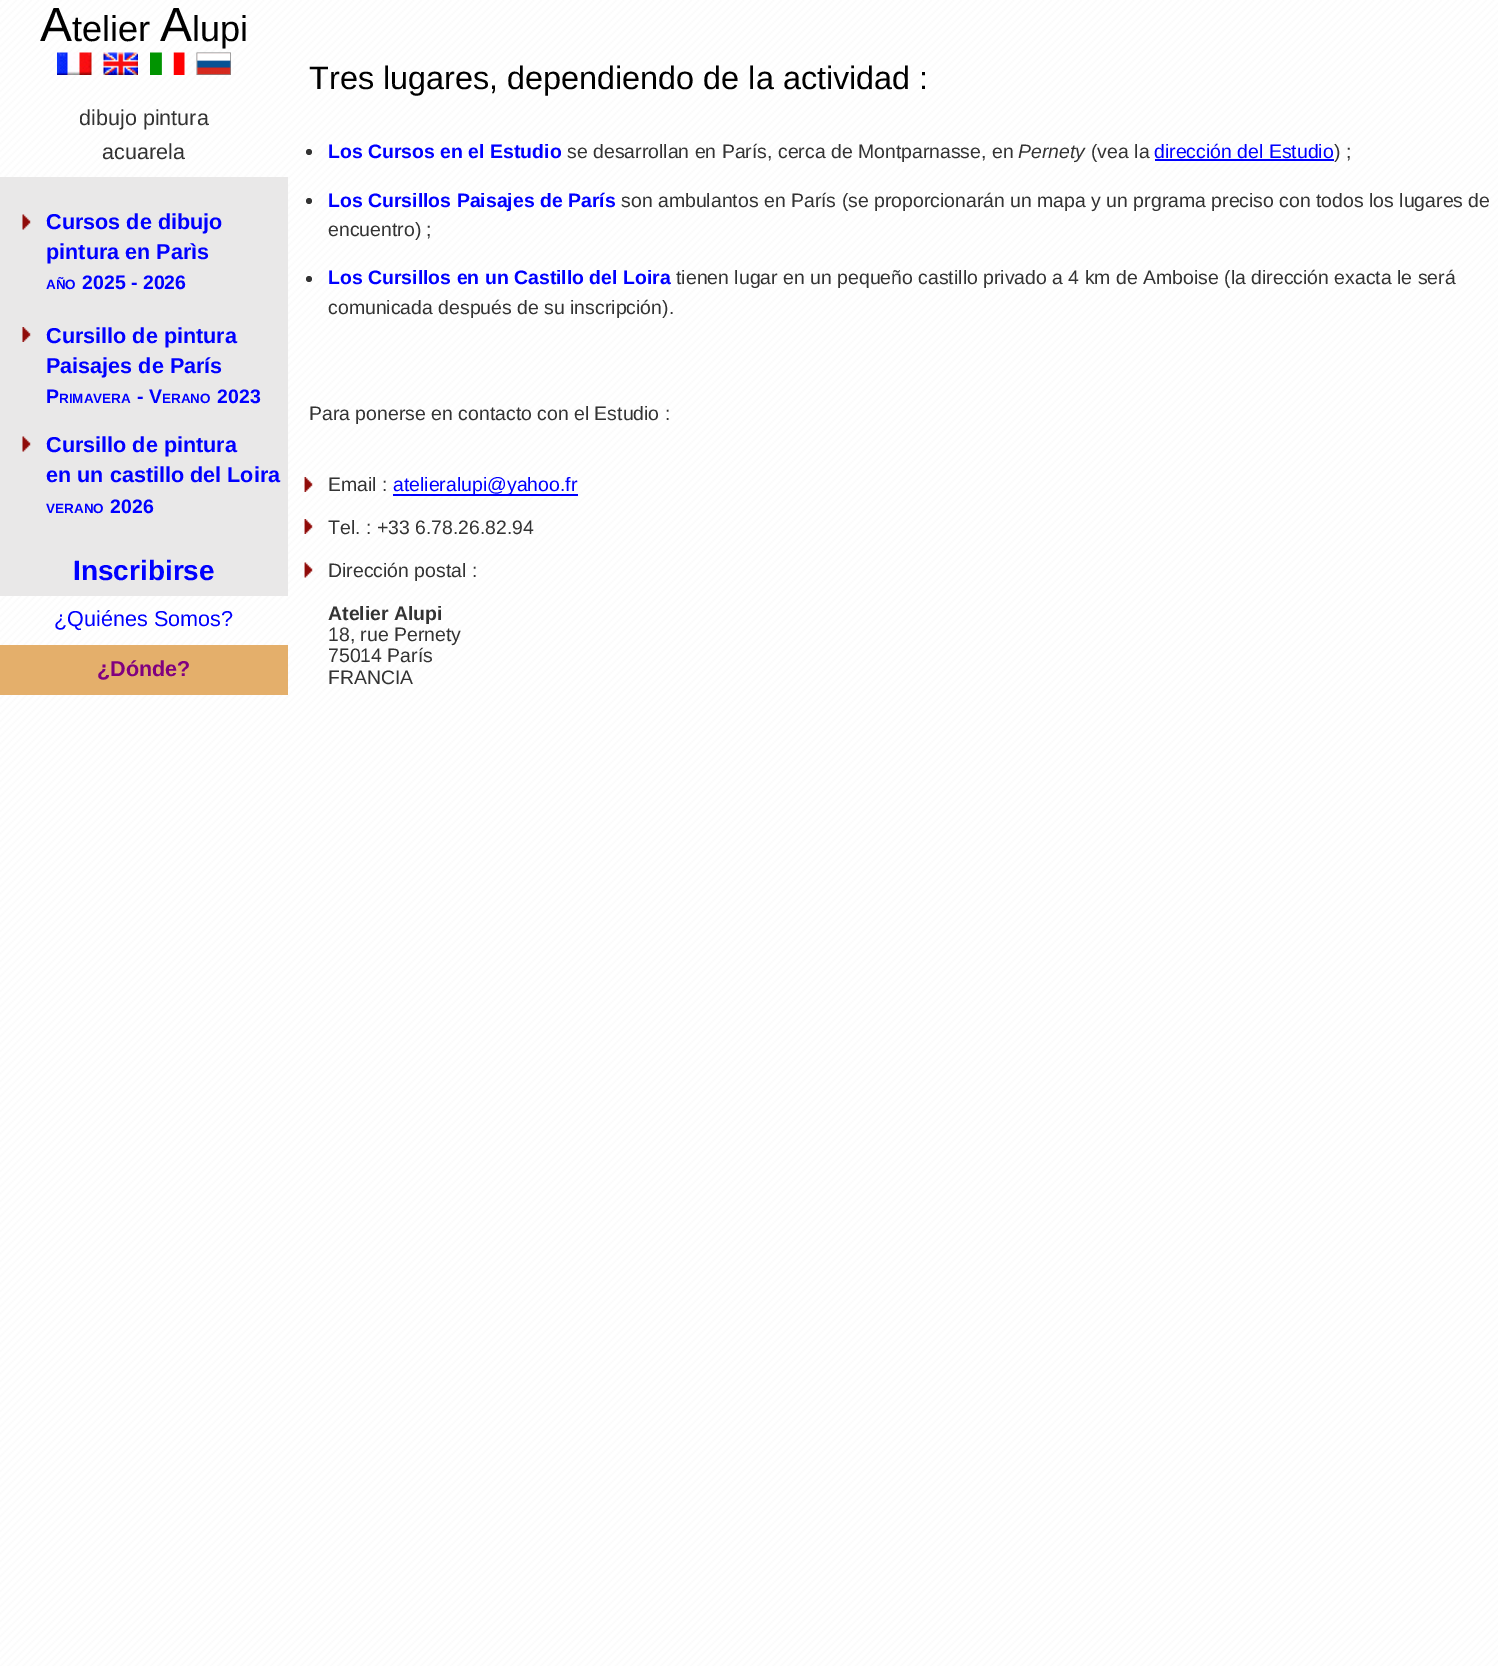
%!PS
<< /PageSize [1499 1666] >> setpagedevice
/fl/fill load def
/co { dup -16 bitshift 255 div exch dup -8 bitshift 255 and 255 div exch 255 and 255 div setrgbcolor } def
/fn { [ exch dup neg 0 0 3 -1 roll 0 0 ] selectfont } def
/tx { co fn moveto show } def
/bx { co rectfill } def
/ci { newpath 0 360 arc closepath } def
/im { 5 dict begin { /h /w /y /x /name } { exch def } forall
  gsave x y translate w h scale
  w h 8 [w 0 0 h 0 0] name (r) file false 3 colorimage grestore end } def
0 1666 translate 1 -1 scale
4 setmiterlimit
0 0 1499 1666 16#FFFFFF bx
(media/1.raw) 0 0 1498 1666 im
(media/2.raw) 57 52 35 23 im
(media/3.raw) 103 52 35 23 im
(media/4.raw) 150 52 35 23 im
(media/5.raw) 196 52 35 23 im
16#333333 co
309 152 3 ci fl
1155 159 179 2 16#0000FF bx
16#333333 co
309 201 3 ci fl
309 279 3 ci fl
(media/6.raw) 304 477 9 15 im
393 494 185 2 16#0000FF bx
(media/7.raw) 304 519 9 15 im
(media/8.raw) 304 562 9 16 im
0 177 288 419 16#E9E8E8 bx
(media/9.raw) 22 214 9 16 im
(media/10.raw) 22 327 9 15 im
(media/9.raw) 22 436 9 16 im
0 645 288 50 16#E4AF6B bx
(A) 40 41 /LiberationSans-Regular 48 16#000000 tx
(telier) 72 41 /LiberationSans-Regular 36 16#000000 tx
(A) 160 41 /LiberationSans-Regular 48 16#000000 tx
(lupi) 192 41 /LiberationSans-Regular 36 16#000000 tx
(Tres lugares, dependiendo de la actividad :) 309 89 /LiberationSans-Regular 32.4 16#000000 tx
(Los Cursos en el Estudio) 328 158 /LiberationSans-Bold 19.45 16#0000FF tx
(se desarrollan en París, cerca de Montparnasse, en) 567 158 /LiberationSans-Regular 19.45 16#333333 tx
(Pernety) 1018 158 /LiberationSans-Italic 19.45 16#333333 tx
(\(vea la) 1091 158 /LiberationSans-Regular 19.45 16#333333 tx
(dirección del Estudio) 1154 158 /LiberationSans-Regular 19.45 16#0000FF tx
(\) ;) 1334 158 /LiberationSans-Regular 19.45 16#333333 tx
(Los Cursillos Paisajes de París) 328 207 /LiberationSans-Bold 19.45 16#0000FF tx
(son ambulantos en París \(se proporcionarán un mapa y un prgrama preciso con todos los lugares) 621 207 /LiberationSans-Regular 19.45 16#333333 tx
(de) 1468 207 /LiberationSans-Regular 19.45 16#333333 tx
(encuentro\) ;) 328 236 /LiberationSans-Regular 19.45 16#333333 tx
(Los Cursillos en un Castillo del Loira) 328 284 /LiberationSans-Bold 19.45 16#0000FF tx
(tienen lugar en un pequeño castillo privado a 4 km de Amboise \(la dirección exacta le será) 676 284 /LiberationSans-Regular 19.45 16#333333 tx
(comunicada después de su inscripción\).) 328 314 /LiberationSans-Regular 19.45 16#333333 tx
(Para ponerse en contacto con el Estudio :) 309 420 /LiberationSans-Regular 19.45 16#333333 tx
(Email :) 328 491 /LiberationSans-Regular 19.45 16#333333 tx
(atelieralupi@yahoo.fr) 393 491 /LiberationSans-Regular 19.45 16#0000FF tx
(Tel. : +33 6.78.26.82.94) 328 534 /LiberationSans-Regular 19.45 16#333333 tx
(Dirección postal :) 328 577 /LiberationSans-Regular 19.45 16#333333 tx
(Atelier Alupi) 328 620 /LiberationSans-Bold 19.45 16#333333 tx
(18, rue Pernety) 328 641 /LiberationSans-Regular 19.45 16#333333 tx
(75014 París) 328 662 /LiberationSans-Regular 19.45 16#333333 tx
(FRANCIA) 328 684 /LiberationSans-Regular 19.45 16#333333 tx
(dibujo pintura) 79 125 /LiberationSans-Regular 21.6 16#333333 tx
(acuarela) 102 159 /LiberationSans-Regular 21.6 16#333333 tx
(Cursos de dibujo) 46 229 /LiberationSans-Bold 21.6 16#0000FF tx
(pintura en Parìs) 46 259 /LiberationSans-Bold 21.6 16#0000FF tx
(AÑO) 46 289 /LiberationSans-Bold 13.5 16#0000FF tx
(2025 - 2026) 82 289 /LiberationSans-Bold 19.5 16#0000FF tx
(Cursillo de pintura) 46 343 /LiberationSans-Bold 21.6 16#0000FF tx
(Paisajes de París) 46 373 /LiberationSans-Bold 21.6 16#0000FF tx
(P) 46 403 /LiberationSans-Bold 19.5 16#0000FF tx
(RIMAVERA) 59 403 /LiberationSans-Bold 13.5 16#0000FF tx
(- V) 137 403 /LiberationSans-Bold 19.5 16#0000FF tx
(ERANO) 162 403 /LiberationSans-Bold 13.5 16#0000FF tx
(2023) 217 403 /LiberationSans-Bold 19.5 16#0000FF tx
(Cursillo de pintura) 46 452 /LiberationSans-Bold 21.6 16#0000FF tx
(en un castillo del Loira) 46 482 /LiberationSans-Bold 21.6 16#0000FF tx
(VERANO) 46 513 /LiberationSans-Bold 13.5 16#0000FF tx
(2026) 110 513 /LiberationSans-Bold 19.5 16#0000FF tx
(Inscribirse) 73 580 /LiberationSans-Bold 28 16#0000FF tx
(¿Quiénes Somos?) 54 626 /LiberationSans-Regular 21.6 16#0000FF tx
(¿Dónde?) 97 676 /LiberationSans-Bold 21.6 16#800080 tx
showpage
